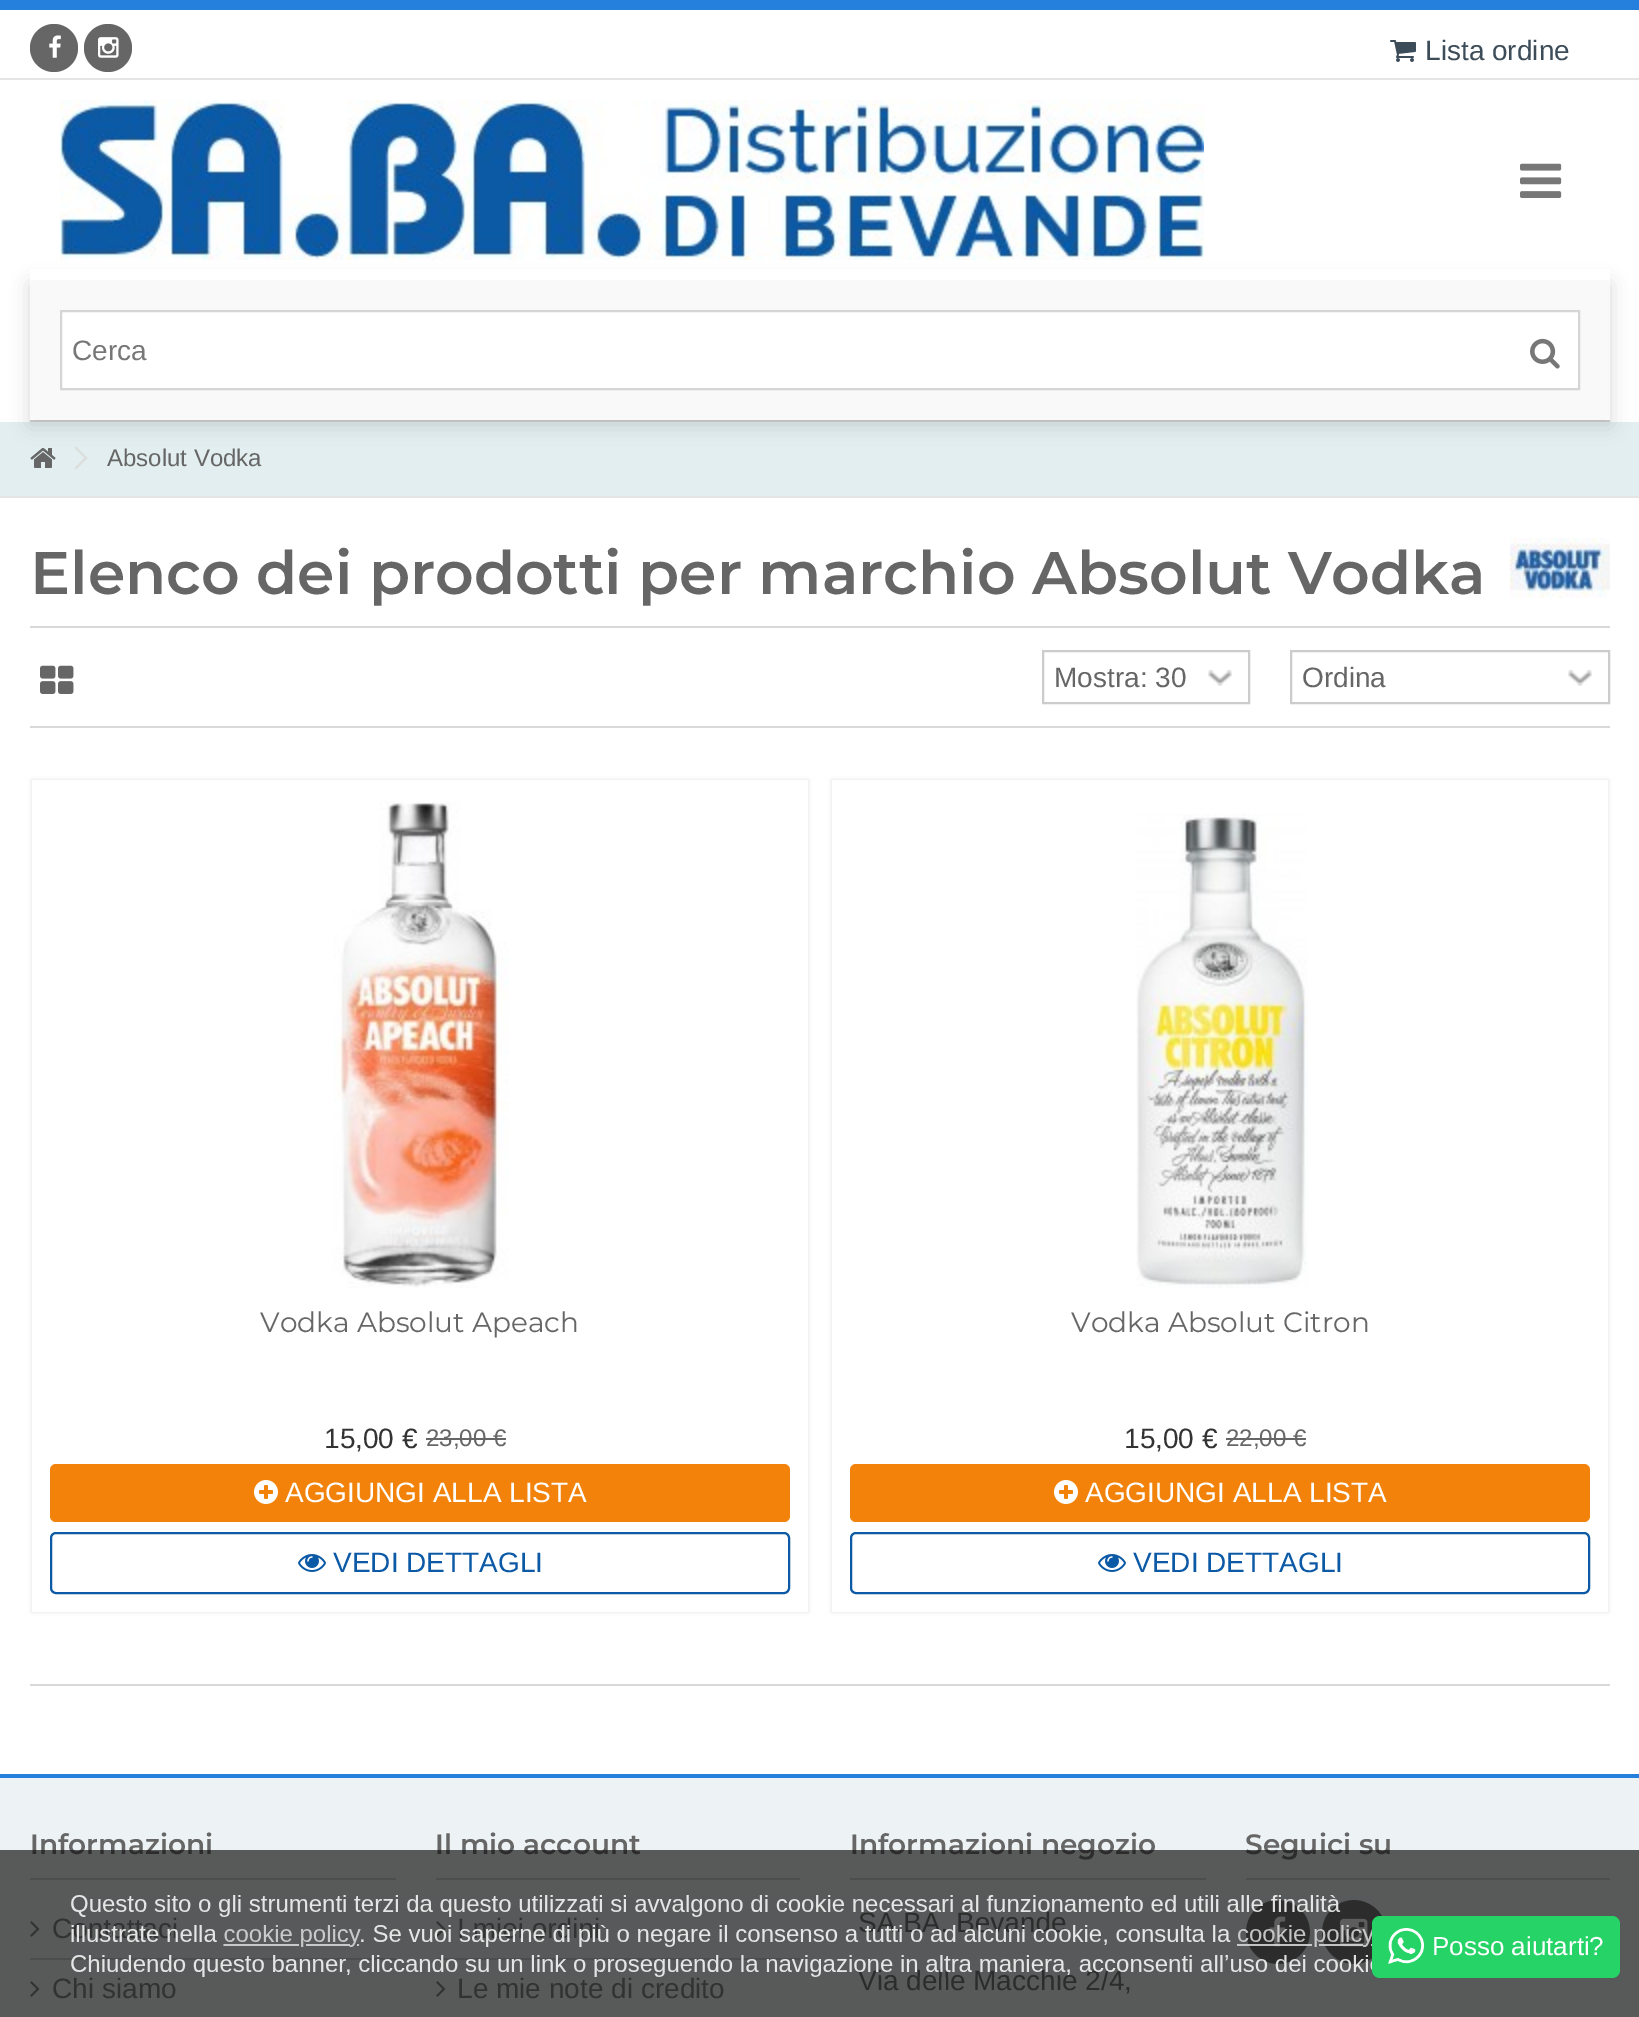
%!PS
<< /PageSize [1639 2017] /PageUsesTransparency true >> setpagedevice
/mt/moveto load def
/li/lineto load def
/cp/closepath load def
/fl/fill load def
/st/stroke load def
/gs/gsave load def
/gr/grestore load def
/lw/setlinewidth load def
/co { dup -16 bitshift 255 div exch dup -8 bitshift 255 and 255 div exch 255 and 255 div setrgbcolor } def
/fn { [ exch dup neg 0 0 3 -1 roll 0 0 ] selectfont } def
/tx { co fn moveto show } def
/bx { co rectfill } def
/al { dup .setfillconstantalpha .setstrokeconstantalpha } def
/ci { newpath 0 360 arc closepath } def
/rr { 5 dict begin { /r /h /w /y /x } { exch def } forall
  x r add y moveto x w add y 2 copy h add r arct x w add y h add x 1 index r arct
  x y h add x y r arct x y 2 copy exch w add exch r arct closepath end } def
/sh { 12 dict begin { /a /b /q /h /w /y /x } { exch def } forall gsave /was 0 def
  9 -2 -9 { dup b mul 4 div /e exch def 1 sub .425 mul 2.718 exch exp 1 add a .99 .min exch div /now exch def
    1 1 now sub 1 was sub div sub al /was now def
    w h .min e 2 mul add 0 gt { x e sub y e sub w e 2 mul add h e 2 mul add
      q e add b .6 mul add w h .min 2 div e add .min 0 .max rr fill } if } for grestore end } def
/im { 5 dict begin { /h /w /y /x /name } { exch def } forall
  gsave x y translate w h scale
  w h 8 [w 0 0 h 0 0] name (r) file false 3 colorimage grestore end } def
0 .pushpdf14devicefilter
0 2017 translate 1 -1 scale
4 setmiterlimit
0 0 1639 2017 16#FFFFFF bx
0 0 1639 10 16#257FDD bx
0 78 1639 2 16#E5E5E5 bx
16#666666 co
54 48 24 ci fl
(media/1.raw) 49 35 12 23 im
108 48 24 ci fl
(media/2.raw) 98 37 21 21 im
(media/3.raw) 1390 40 26 22 im
30 420 1580 2 16#D6D4D4 bx
0 422 1639 74 16#E2EEEF bx
(media/7.raw) 30 448 26 20 im
16#DDDDDD co
76 446.5 mt 87.5 458 li 86 459.5 li 74.5 448 li cp fl
16#000000 co
30 284 1580 140 0 10 .15 sh
30 269 1580 11 16#FFFFFF bx
(media/4.raw) 60 100 1144 160 im
(media/5.raw) 1520 163 42 35 im
30 280 1580 140 16#F9F9F9 bx
16#FFFFFF co
61 311 mt 1579 311 li 1579 389 li 61 389 li cp gs fl gr
16#D6D4D4 co
2 lw
st
(media/6.raw) 1530 338 30 31 im
0 496 1639 2 16#E5E5E5 bx
16#DDDDDD co
86 456.5 mt 87.5 458 li 76 469.5 li 74.5 468 li cp fl
30 626 1580 2 16#D9D9D9 bx
(media/8.raw) 1510 538 100 60 im
30 726 1580 2 16#D9D9D9 bx
(media/9.raw) 40 665 34 29 im
(media/10.raw) 1208 670 24 16 im
16#CCCCCC co
1043 651 206 52 rectstroke
(media/10.raw) 1568 670 24 16 im
1291 651 318 52 rectstroke
gs
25 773 mt 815 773 li 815 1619 li 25 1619 li cp 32 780 mt 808 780 li 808 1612 li 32 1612 li cp eoclip newpath
16#000000 co
32 780 776 832 0 2 .12 sh
gr
(media/11.raw) 333 801 176 487 im
426 1438 80 2 16#666666 bx
16#F28209 co
50 1464 740 58 6 rr fl
(media/12.raw) 254 1480 24 24 im
16#0C5AA6 co
51 1533 738 60 5 rr st
(media/13.raw) 298 1554 28 18 im
gs
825 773 mt 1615 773 li 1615 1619 li 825 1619 li cp 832 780 mt 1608 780 li 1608 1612 li 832 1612 li cp eoclip newpath
16#000000 co
832 780 776 832 0 2 .12 sh
gr
(media/14.raw) 1136 814 172 474 im
1226 1438 80 2 16#666666 bx
16#F28209 co
850 1464 740 58 6 rr fl
(media/12.raw) 1054 1480 24 24 im
16#0C5AA6 co
851 1533 738 60 5 rr st
(media/13.raw) 1098 1554 28 18 im
30 1684 1580 2 16#D9D9D9 bx
0 1774 1639 4 16#257FDD bx
0 1778 1639 239 16#EDF3F4 bx
30 1878 366 2 16#CCCCCC bx
(media/15.raw) 30 1921 10 16 im
30 1958 366 2 16#CCCCCC bx
(media/15.raw) 30 1981 10 16 im
436 1878 364 2 16#CCCCCC bx
(media/15.raw) 436 1921 10 16 im
436 1958 364 2 16#CCCCCC bx
(media/15.raw) 436 1981 10 16 im
850 1878 356 2 16#CCCCCC bx
1246 1878 364 2 16#CCCCCC bx
16#666666 co
1278 1932 32 ci fl
(media/16.raw) 1269 1916 17 31 im
1354 1932 32 ci fl
(media/17.raw) 1340 1918 28 29 im
(Lista ordine) 1425 60 /LiberationSans-Regular 28 16#3C4C58 tx
(Cerca) 72 360 /LiberationSans-Regular 28 16#777777 tx
(Absolut Vodka) 107 466 /LiberationSans-Regular 24 16#666666 tx
(Elenco dei prodotti per marchio Absolut Vodka) 30 594 /Montserrat-SemiBold 60 16#666666 tx
(Mostra: 30) 1054 687 /LiberationSans-Regular 28 16#666666 tx
(Ordina) 1302 687 /LiberationSans-Regular 28 16#666666 tx
(Vodka Absolut Apeach) 260 1332 /Montserrat-Regular 28 16#666666 tx
(15,00 €) 324 1448 /LiberationSans-Regular 28 16#333333 tx
(23,00 €) 426 1446 /LiberationSans-Regular 24 16#666666 tx
(AGGIUNGI ALLA LISTA) 285 1502 /LiberationSans-Regular 28 16#FFFFFF tx
(VEDI DETTAGLI) 333 1572 /LiberationSans-Regular 28 16#0C5AA6 tx
(Vodka Absolut Citron) 1071 1332 /Montserrat-Regular 28 16#666666 tx
(15,00 €) 1124 1448 /LiberationSans-Regular 28 16#333333 tx
(22,00 €) 1226 1446 /LiberationSans-Regular 24 16#666666 tx
(AGGIUNGI ALLA LISTA) 1085 1502 /LiberationSans-Regular 28 16#FFFFFF tx
(VEDI DETTAGLI) 1133 1572 /LiberationSans-Regular 28 16#0C5AA6 tx
(Informazioni) 30 1854 /Montserrat-SemiBold 28 16#666666 tx
(Contattaci) 52 1938 /LiberationSans-Regular 28 16#777777 tx
(Chi siamo) 52 1998 /LiberationSans-Regular 28 16#777777 tx
(Il mio account) 435 1854 /Montserrat-SemiBold 28 16#666666 tx
(I miei ordini) 457 1938 /LiberationSans-Regular 28 16#777777 tx
(Le mie note di credito) 457 1998 /LiberationSans-Regular 28 16#777777 tx
(Informazioni negozio) 850 1854 /Montserrat-SemiBold 28 16#666666 tx
(SA.BA. Bevande) 858 1932 /LiberationSans-Regular 28 16#666666 tx
(Via delle Macchie 2/4,) 858 1990 /LiberationSans-Regular 28 16#666666 tx
(Seguici su) 1245 1854 /Montserrat-SemiBold 28 16#666666 tx
0.68 al
0 1850 1639 167 16#111111 bx
1 al
(media/19.raw) 71 1895 1302 82 im
16#25D366 co
1372 1916 248 62 8 rr fl
(media/18.raw) 1388 1928 36 36 im
(Posso aiutarti?) 1432 1955 /LiberationSans-Regular 26 16#FFFFFF tx
.poppdf14devicefilter showpage
